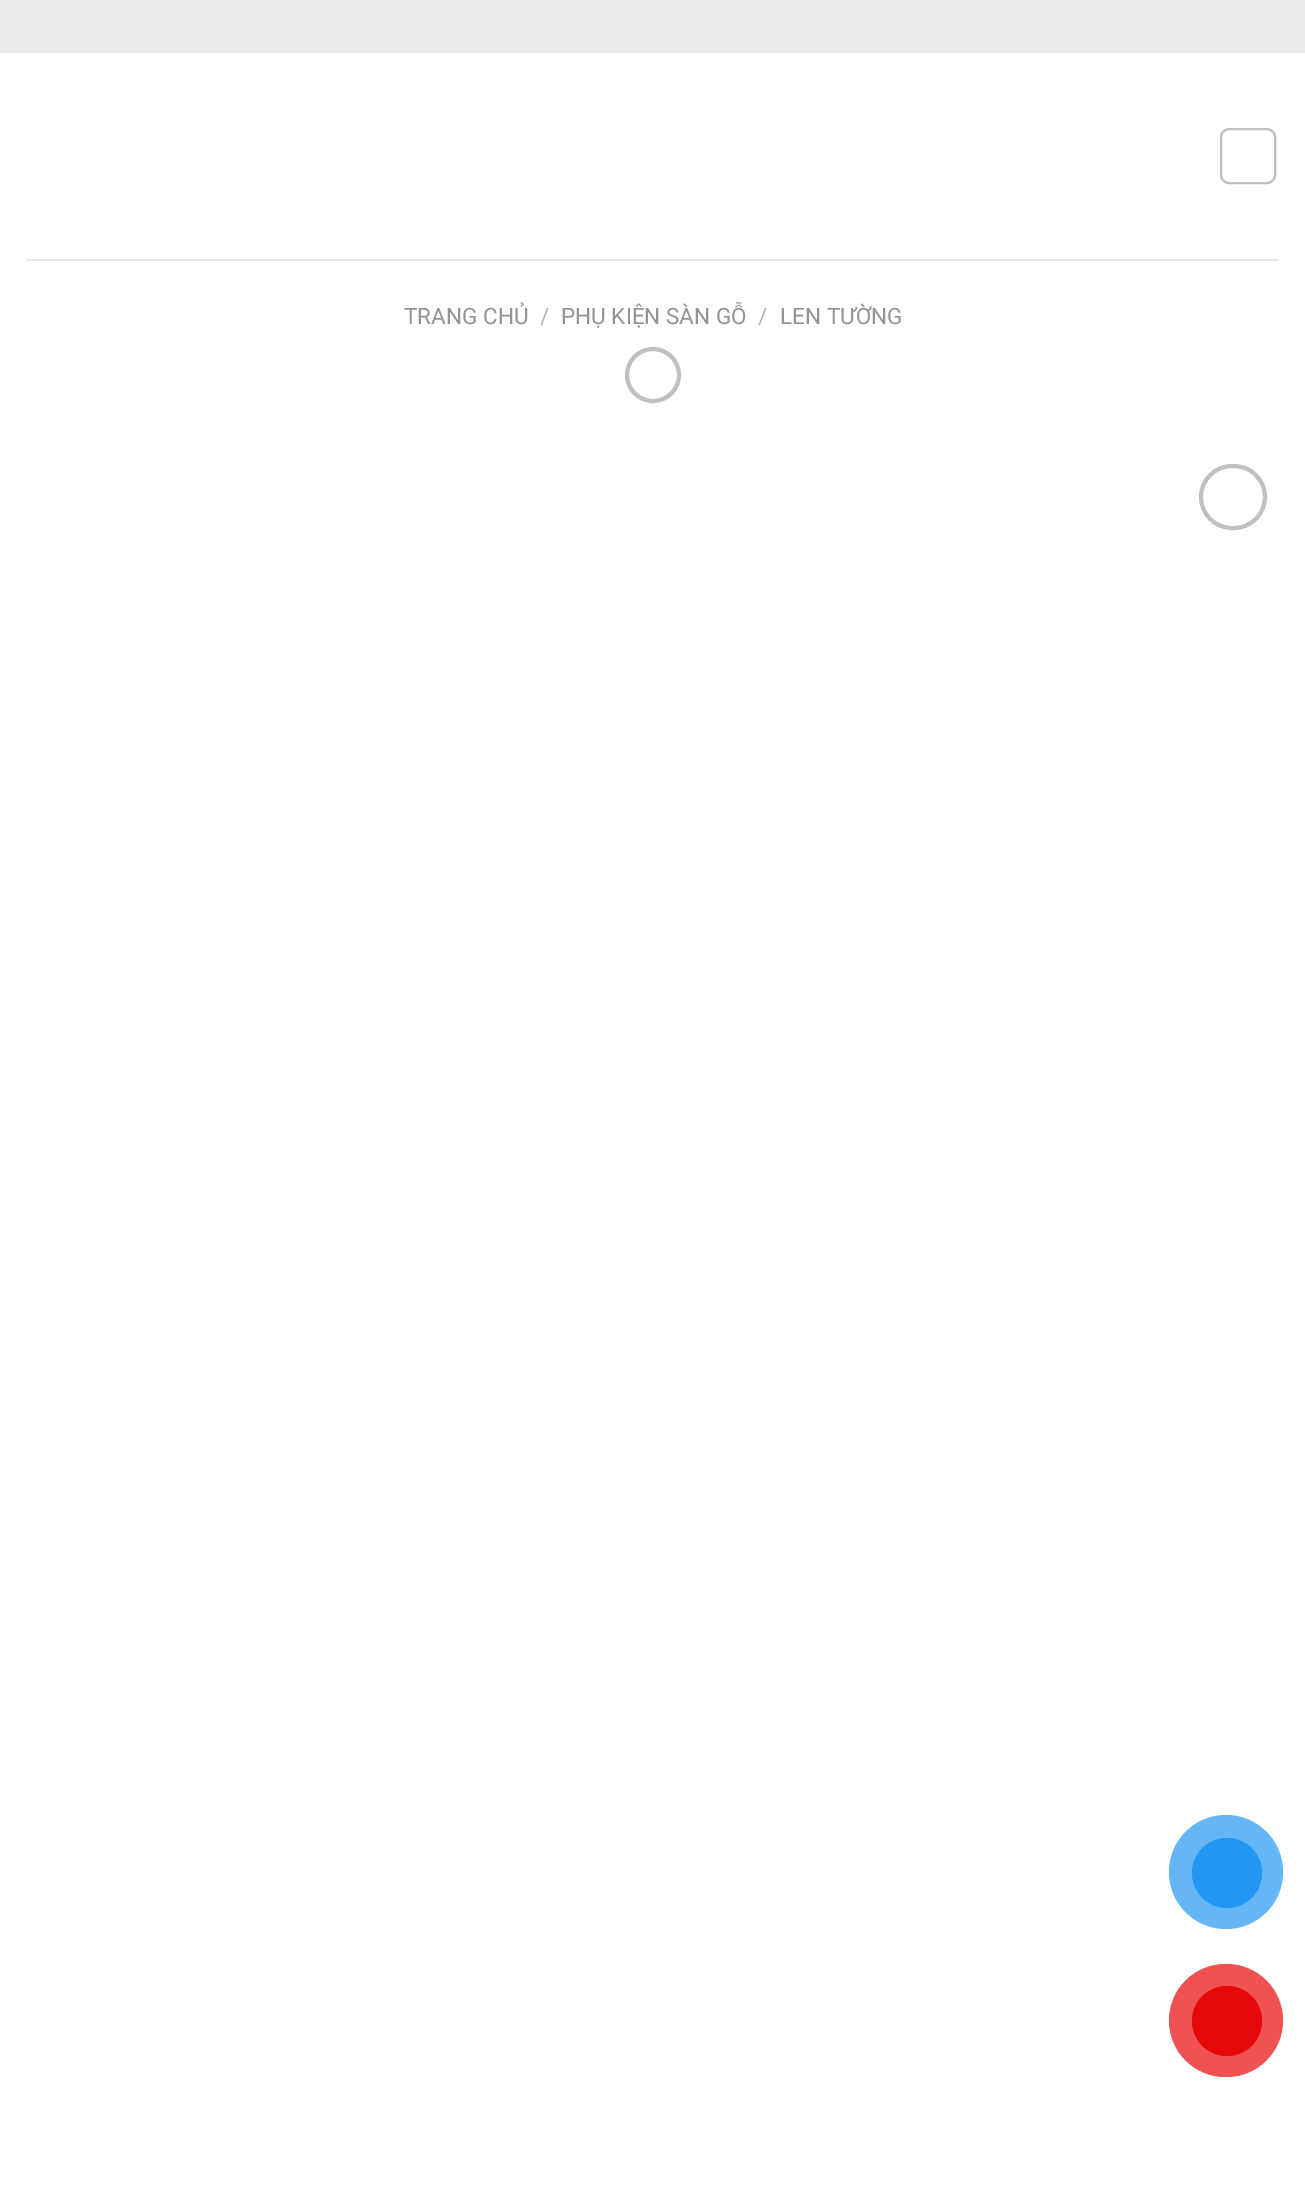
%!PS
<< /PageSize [1305 2209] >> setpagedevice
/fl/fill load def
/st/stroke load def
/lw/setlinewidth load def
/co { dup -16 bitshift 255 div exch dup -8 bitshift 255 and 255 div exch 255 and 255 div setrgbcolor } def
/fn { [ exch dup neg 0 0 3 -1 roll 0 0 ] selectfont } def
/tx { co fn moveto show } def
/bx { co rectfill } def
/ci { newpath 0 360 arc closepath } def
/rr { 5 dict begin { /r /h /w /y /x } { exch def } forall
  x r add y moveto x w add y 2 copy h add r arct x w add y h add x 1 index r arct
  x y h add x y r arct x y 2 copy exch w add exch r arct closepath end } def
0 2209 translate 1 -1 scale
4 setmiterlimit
0 0 1305 2209 16#FFFFFF bx
0 0 1305 53 16#EBEBEB bx
16#C0C0C0 co
2 lw
1221 129 54 54 8 rr st
26 259 1253 2 16#E6E6E6 bx
16#C0C0C0 co
4 lw
653 375 26 ci st
1201 466 64 62 31 rr st
16#64B6F7 co
1226 1872 57 ci fl
16#2196F3 co
1227 1873 35 ci fl
16#EE5252 co
1169 1964 114 113 56.5 rr fl
16#E60808 co
1227 2021 35 ci fl
(TRANG CHỦ) 404 324 /Roboto-Regular 22.5 16#949494 tx
(/) 540 324 /Roboto-Regular 22.5 16#B2B2B2 tx
(PHỤ KIỆN SÀN GỖ) 561 324 /Roboto-Regular 22.5 16#949494 tx
(/) 758 324 /Roboto-Regular 22.5 16#B2B2B2 tx
(LEN TƯỜNG) 780 324 /Roboto-Regular 22.5 16#949494 tx
showpage
